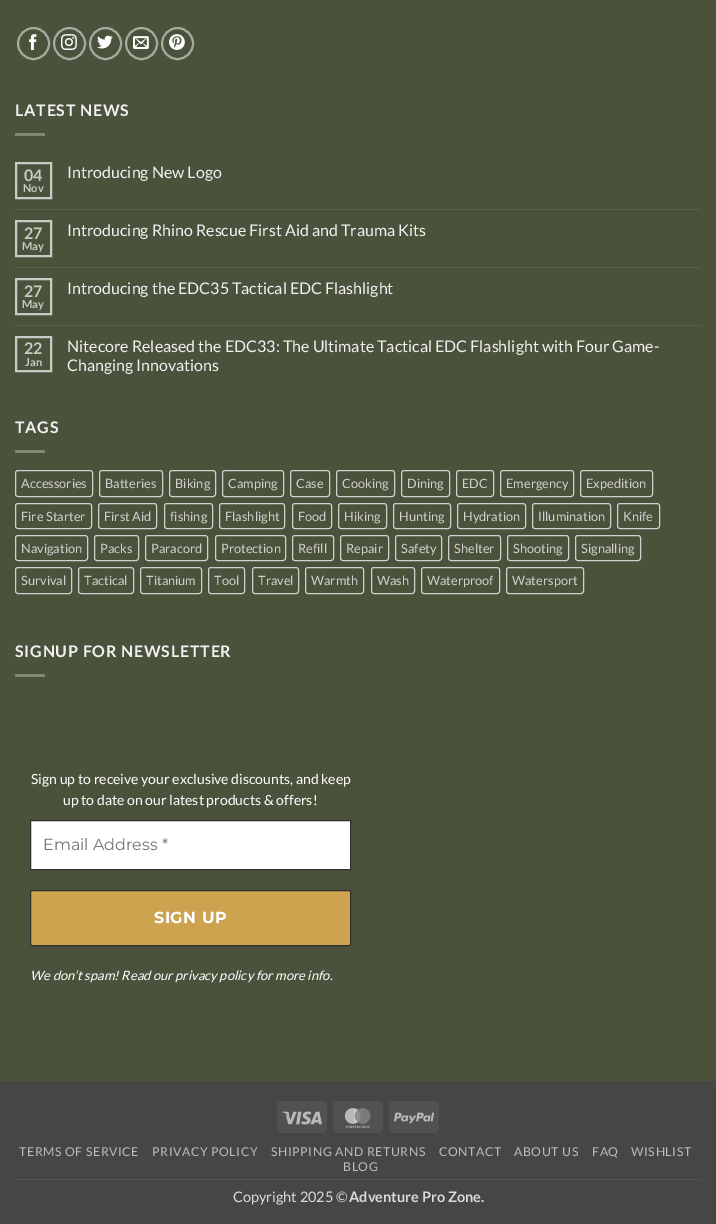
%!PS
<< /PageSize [716 1224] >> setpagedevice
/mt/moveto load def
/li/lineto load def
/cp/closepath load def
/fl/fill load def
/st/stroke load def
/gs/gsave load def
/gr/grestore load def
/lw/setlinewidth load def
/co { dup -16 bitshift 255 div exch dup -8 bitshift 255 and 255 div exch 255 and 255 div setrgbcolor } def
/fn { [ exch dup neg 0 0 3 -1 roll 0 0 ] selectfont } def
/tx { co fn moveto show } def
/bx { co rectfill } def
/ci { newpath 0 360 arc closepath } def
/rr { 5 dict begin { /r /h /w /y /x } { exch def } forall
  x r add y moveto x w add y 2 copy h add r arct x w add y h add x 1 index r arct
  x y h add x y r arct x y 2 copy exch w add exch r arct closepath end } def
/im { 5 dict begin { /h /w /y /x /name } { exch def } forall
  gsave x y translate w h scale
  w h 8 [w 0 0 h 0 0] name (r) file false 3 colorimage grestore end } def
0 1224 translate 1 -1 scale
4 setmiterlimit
0 0 716 1224 16#4B523C bx
16#A5A99E co
2 lw
33.5 43.5 15.5 ci st
(media/1.raw) 28 34 9 16 im
69.5 43.5 15.5 ci st
(media/2.raw) 61 34 16 16 im
105.5 43.5 15.5 ci st
(media/3.raw) 97 35 16 14 im
141.5 43.5 15.5 ci st
(media/4.raw) 133 36 16 13 im
177.5 43.5 15.5 ci st
(media/5.raw) 169 34 16 16 im
15 133 30 3 16#818677 bx
16#C9CBC5 co
16 163 35 35 rectstroke
15 209 686 1 16#59604C bx
16#C9CBC5 co
16 221 35 35 rectstroke
15 267 686 1 16#59604C bx
16#C9CBC5 co
16 279 35 35 rectstroke
15 325 686 1 16#59604C bx
16#C9CBC5 co
16 337 35 34 rectstroke
15 450 30 3 16#818677 bx
16#D0D1CD co
1 lw
15.5 470.5 77 26 2.5 rr st
99.5 470.5 63 26 2.5 rr st
169.5 470.5 46 26 2.5 rr st
222.5 470.5 61 26 2.5 rr st
290.5 470.5 39 26 2.5 rr st
336.5 470.5 58 26 2.5 rr st
401.5 470.5 48 26 2.5 rr st
456.5 470.5 37 26 2.5 rr st
500.5 470.5 73 26 2.5 rr st
580.5 470.5 72 26 2.5 rr st
15.5 503.5 76 25 2.5 rr st
98.5 503.5 58 25 2.5 rr st
164.5 503.5 48 25 2.5 rr st
219.5 503.5 65 25 2.5 rr st
292.5 503.5 39 25 2.5 rr st
338.5 503.5 48 25 2.5 rr st
393.5 503.5 57 25 2.5 rr st
457.5 503.5 68 25 2.5 rr st
532.5 503.5 78 25 2.5 rr st
617.5 503.5 42 25 2.5 rr st
15.5 535.5 72 25 2.5 rr st
94.5 535.5 44 25 2.5 rr st
145.5 535.5 62 25 2.5 rr st
215.5 535.5 70 25 2.5 rr st
292.5 535.5 41 25 2.5 rr st
340.5 535.5 48 25 2.5 rr st
395.5 535.5 46 25 2.5 rr st
448.5 535.5 52 25 2.5 rr st
507.5 535.5 61 25 2.5 rr st
575.5 535.5 65 25 2.5 rr st
15.5 567.5 56 26 2.5 rr st
78.5 567.5 55 26 2.5 rr st
140.5 567.5 61 26 2.5 rr st
208.5 567.5 36 26 2.5 rr st
252.5 567.5 46 26 2.5 rr st
305.5 567.5 58 26 2.5 rr st
371.5 567.5 43 26 2.5 rr st
421.5 567.5 78 26 2.5 rr st
506.5 567.5 77 26 2.5 rr st
15 674 30 3 16#818677 bx
16#FFFFFF co
30.5 820.5 mt 350.5 820.5 li 350.5 869.5 li 30.5 869.5 li cp gs fl gr
16#313131 co
st
16#CDA34F co
30.5 890.5 320 55 1.5 rr gs fl gr
16#313131 co
st
0 1081 716 143 16#464646 bx
16#515151 co
277 1101 50 32 5 rr fl
(media/6.raw) 282 1111 40 14 im
333 1101 50 32 5 rr fl
(media/7.raw) 344 1108 27 20 im
389 1101 50 32 5 rr fl
(media/8.raw) 394 1112 40 12 im
15 1179 686 1 16#525252 bx
/Lato-Bold 16 fn
16#F1F1F1 co
15 116 mt .8 0 (LATEST NEWS) ashow
(04) 24 181 /Lato-Bold 16 16#C9CBC5 tx
(Nov) 23 192 /Lato-Bold 11 16#C9CBC5 tx
(Introducing New Logo) 67 178 /Lato-Regular 16 16#F1F1F1 tx
(27) 24 239 /Lato-Bold 16 16#C9CBC5 tx
(May) 22 250 /Lato-Bold 11 16#C9CBC5 tx
(Introducing Rhino Rescue First Aid and Trauma Kits) 67 236 /Lato-Regular 16 16#F1F1F1 tx
(27) 24 297 /Lato-Bold 16 16#C9CBC5 tx
(May) 22 308 /Lato-Bold 11 16#C9CBC5 tx
(Introducing the EDC35 Tactical EDC Flashlight) 67 294 /Lato-Regular 16 16#F1F1F1 tx
(22) 24 354 /Lato-Bold 16 16#C9CBC5 tx
(Jan) 25 366 /Lato-Bold 11 16#C9CBC5 tx
(Nitecore Released the EDC33: The Ultimate Tactical EDC Flashlight with Four Game-) 67 352 /Lato-Regular 16 16#F1F1F1 tx
(Changing Innovations) 67 371 /Lato-Regular 16 16#F1F1F1 tx
/Lato-Bold 16 fn
15 433 mt .8 0 (TAGS) ashow
(Accessories) 21 488 /Lato-Regular 12.75 16#D0D1CD tx
(Batteries) 105 488 /Lato-Regular 12.75 16#D0D1CD tx
(Biking) 175 488 /Lato-Regular 12.75 16#D0D1CD tx
(Camping) 228 488 /Lato-Regular 12.75 16#D0D1CD tx
(Case) 296 488 /Lato-Regular 12.75 16#D0D1CD tx
(Cooking) 342 488 /Lato-Regular 12.75 16#D0D1CD tx
(Dining) 407 488 /Lato-Regular 12.75 16#D0D1CD tx
(EDC) 462 488 /Lato-Regular 12.75 16#D0D1CD tx
(Emergency) 506 488 /Lato-Regular 12.75 16#D0D1CD tx
(Expedition) 586 488 /Lato-Regular 12.75 16#D0D1CD tx
(Fire Starter) 21 521 /Lato-Regular 12.75 16#D0D1CD tx
(First Aid) 104 521 /Lato-Regular 12.75 16#D0D1CD tx
(fishing) 170 521 /Lato-Regular 12.75 16#D0D1CD tx
(Flashlight) 225 521 /Lato-Regular 12.75 16#D0D1CD tx
(Food) 298 521 /Lato-Regular 12.75 16#D0D1CD tx
(Hiking) 344 521 /Lato-Regular 12.75 16#D0D1CD tx
(Hunting) 399 521 /Lato-Regular 12.75 16#D0D1CD tx
(Hydration) 463 521 /Lato-Regular 12.75 16#D0D1CD tx
(Illumination) 538 521 /Lato-Regular 12.75 16#D0D1CD tx
(Knife) 623 521 /Lato-Regular 12.75 16#D0D1CD tx
(Navigation) 21 553 /Lato-Regular 12.75 16#D0D1CD tx
(Packs) 100 553 /Lato-Regular 12.75 16#D0D1CD tx
(Paracord) 151 553 /Lato-Regular 12.75 16#D0D1CD tx
(Protection) 221 553 /Lato-Regular 12.75 16#D0D1CD tx
(Refill) 298 553 /Lato-Regular 12.75 16#D0D1CD tx
(Repair) 346 553 /Lato-Regular 12.75 16#D0D1CD tx
(Safety) 401 553 /Lato-Regular 12.75 16#D0D1CD tx
(Shelter) 454 553 /Lato-Regular 12.75 16#D0D1CD tx
(Shooting) 513 553 /Lato-Regular 12.75 16#D0D1CD tx
(Signalling) 581 553 /Lato-Regular 12.75 16#D0D1CD tx
(Survival) 21 585 /Lato-Regular 12.75 16#D0D1CD tx
(Tactical) 84 585 /Lato-Regular 12.75 16#D0D1CD tx
(Titanium) 146 585 /Lato-Regular 12.75 16#D0D1CD tx
(Tool) 214 585 /Lato-Regular 12.75 16#D0D1CD tx
(Travel) 258 585 /Lato-Regular 12.75 16#D0D1CD tx
(Warmth) 311 585 /Lato-Regular 12.75 16#D0D1CD tx
(Wash) 377 585 /Lato-Regular 12.75 16#D0D1CD tx
(Waterproof) 427 585 /Lato-Regular 12.75 16#D0D1CD tx
(Watersport) 512 585 /Lato-Regular 12.75 16#D0D1CD tx
/Lato-Bold 16 fn
16#F1F1F1 co
15 657 mt .8 0 (SIGNUP FOR NEWSLETTER) ashow
(Sign up to receive your exclusive discounts, and keep) 31 784 /Lato-Regular 14 16#FFFFFF tx
(up to date on our latest products & offers!) 63 805 /Lato-Regular 14 16#FFFFFF tx
(Email Address *) 43 850 /Montserrat-Regular 16 16#757575 tx
/Montserrat-Bold 16 fn
16#FFFFFF co
154 923 mt .5 0 (SIGN UP) ashow
(We don’t spam! Read our privacy policy for more info.) 30 980 /Lato-Italic 13 16#FFFFFF tx
/Lato-Regular 12.25 fn
16#BCBCBC co
19 1156 mt .6 0 (TERMS OF SERVICE) ashow
152 1156 mt .6 0 (PRIVACY POLICY) ashow
271 1156 mt .6 0 (SHIPPING AND RETURNS) ashow
439 1156 mt .6 0 (CONTACT) ashow
514 1156 mt .6 0 (ABOUT US) ashow
592 1156 mt .6 0 (FAQ) ashow
631 1156 mt .6 0 (WISHLIST) ashow
343 1171 mt .6 0 (BLOG) ashow
(Copyright 2025 ©) 233 1202 /Lato-Regular 14.5 16#DADADA tx
(Adventure Pro Zone.) 349 1202 /Lato-Bold 14.5 16#DADADA tx
showpage
